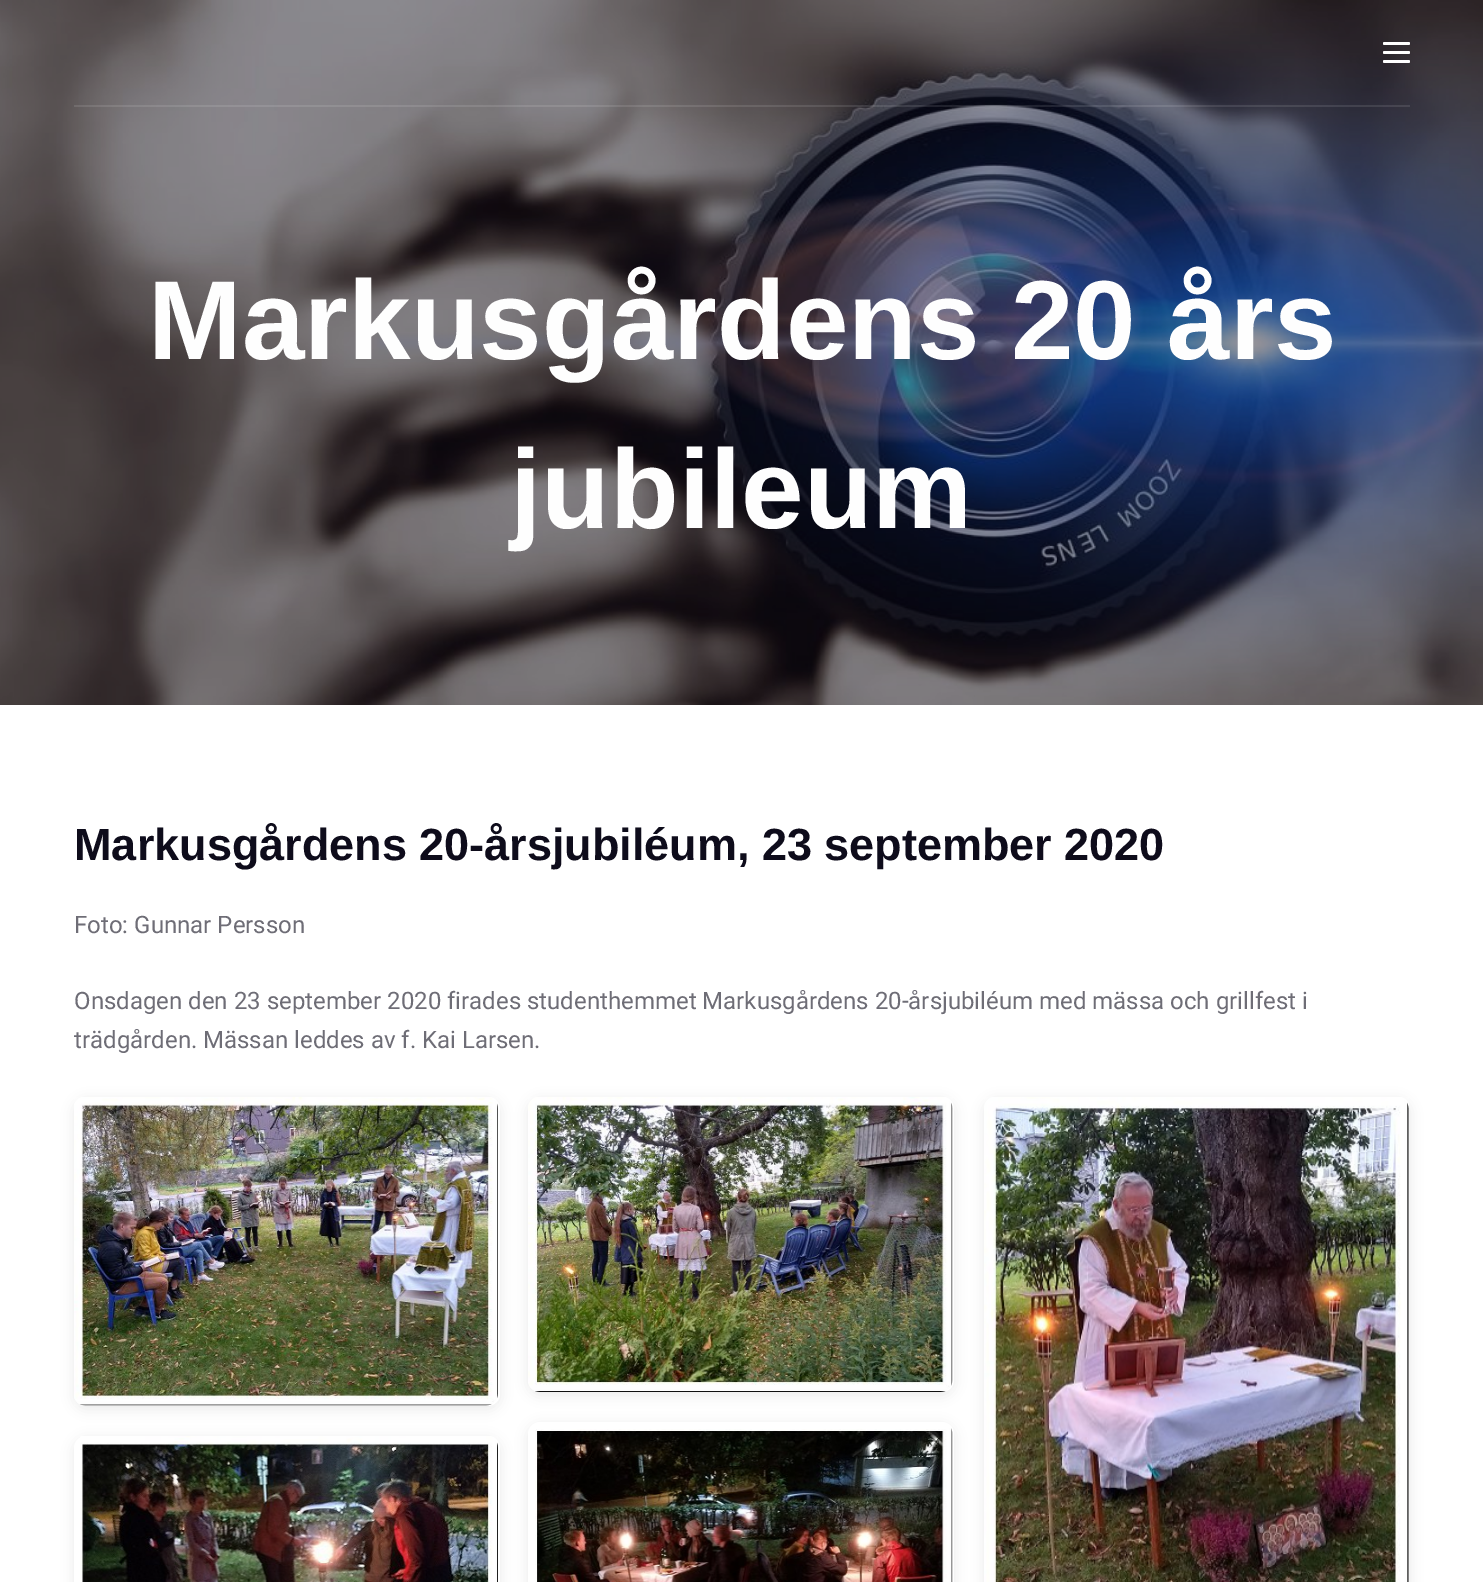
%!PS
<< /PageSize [1483 1582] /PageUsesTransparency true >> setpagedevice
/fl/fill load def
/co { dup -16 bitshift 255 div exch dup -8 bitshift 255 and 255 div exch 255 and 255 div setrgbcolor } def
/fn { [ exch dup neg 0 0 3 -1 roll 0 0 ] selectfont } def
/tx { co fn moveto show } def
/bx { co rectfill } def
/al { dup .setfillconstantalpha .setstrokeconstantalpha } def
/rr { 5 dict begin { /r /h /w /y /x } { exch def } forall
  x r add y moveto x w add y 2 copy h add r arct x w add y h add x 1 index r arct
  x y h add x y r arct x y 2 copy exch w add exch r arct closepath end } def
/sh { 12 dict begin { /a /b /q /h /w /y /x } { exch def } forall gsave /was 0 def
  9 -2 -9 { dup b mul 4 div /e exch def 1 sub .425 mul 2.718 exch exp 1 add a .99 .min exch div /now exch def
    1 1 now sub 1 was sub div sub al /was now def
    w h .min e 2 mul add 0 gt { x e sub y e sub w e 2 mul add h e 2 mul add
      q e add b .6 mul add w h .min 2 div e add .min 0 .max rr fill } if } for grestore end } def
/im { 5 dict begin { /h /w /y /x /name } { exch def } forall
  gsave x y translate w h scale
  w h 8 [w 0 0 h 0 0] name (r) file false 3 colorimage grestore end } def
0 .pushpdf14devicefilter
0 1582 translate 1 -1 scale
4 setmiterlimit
0 0 1483 1582 16#FFFFFF bx
(media/1.raw) 0 0 1483 705 im
0.1 al
74 105 1336 2 16#FFFFFF bx
1 al
1383 42 27 3 1.5 rr fl
1383 51 27 3 1.5 rr fl
1383 60 27 3 1.5 rr fl
16#000000 co
74 1100 426 309 12 6 .08 sh
16#FFFFFF co
74 1097 426 309 12 rr fl
(media/2.raw) 74 1097 424 309 im
16#000000 co
528 1100 426 295 12 6 .08 sh
16#FFFFFF co
528 1097 426 295 12 rr fl
(media/3.raw) 528 1097 425 295 im
16#000000 co
984 1100 426 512 12 6 .08 sh
(media/4.raw) 984 1097 425 485 im
74 1439 426 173 12 6 .08 sh
16#FFFFFF co
74 1436 426 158 12 rr fl
(media/5.raw) 80 1436 418 146 im
16#000000 co
528 1425 426 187 12 6 .08 sh
16#FFFFFF co
528 1422 426 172 12 rr fl
(media/6.raw) 535 1428 418 154 im
(Markusgårdens 20 års) 148 359 /LiberationSans-Bold 112.5 16#FEFEFE tx
(jubileum) 510 528 /LiberationSans-Bold 112.5 16#FEFEFE tx
(Markusgårdens 20-årsjubiléum, 23 september 2020) 74 860 /LiberationSans-Bold 45 16#0E0C1B tx
(Foto: Gunnar Persson) 74 933 /Roboto-Regular 24 16#6E6D76 tx
(Onsdagen den 23 september 2020 firades studenthemmet Markusgårdens 20-årsjubiléum med mässa och grillfest i) 74 1009 /Roboto-Regular 24 16#6E6D76 tx
(trädgården. Mässan leddes av f. Kai Larsen.) 74 1048 /Roboto-Regular 24 16#6E6D76 tx
.poppdf14devicefilter showpage
